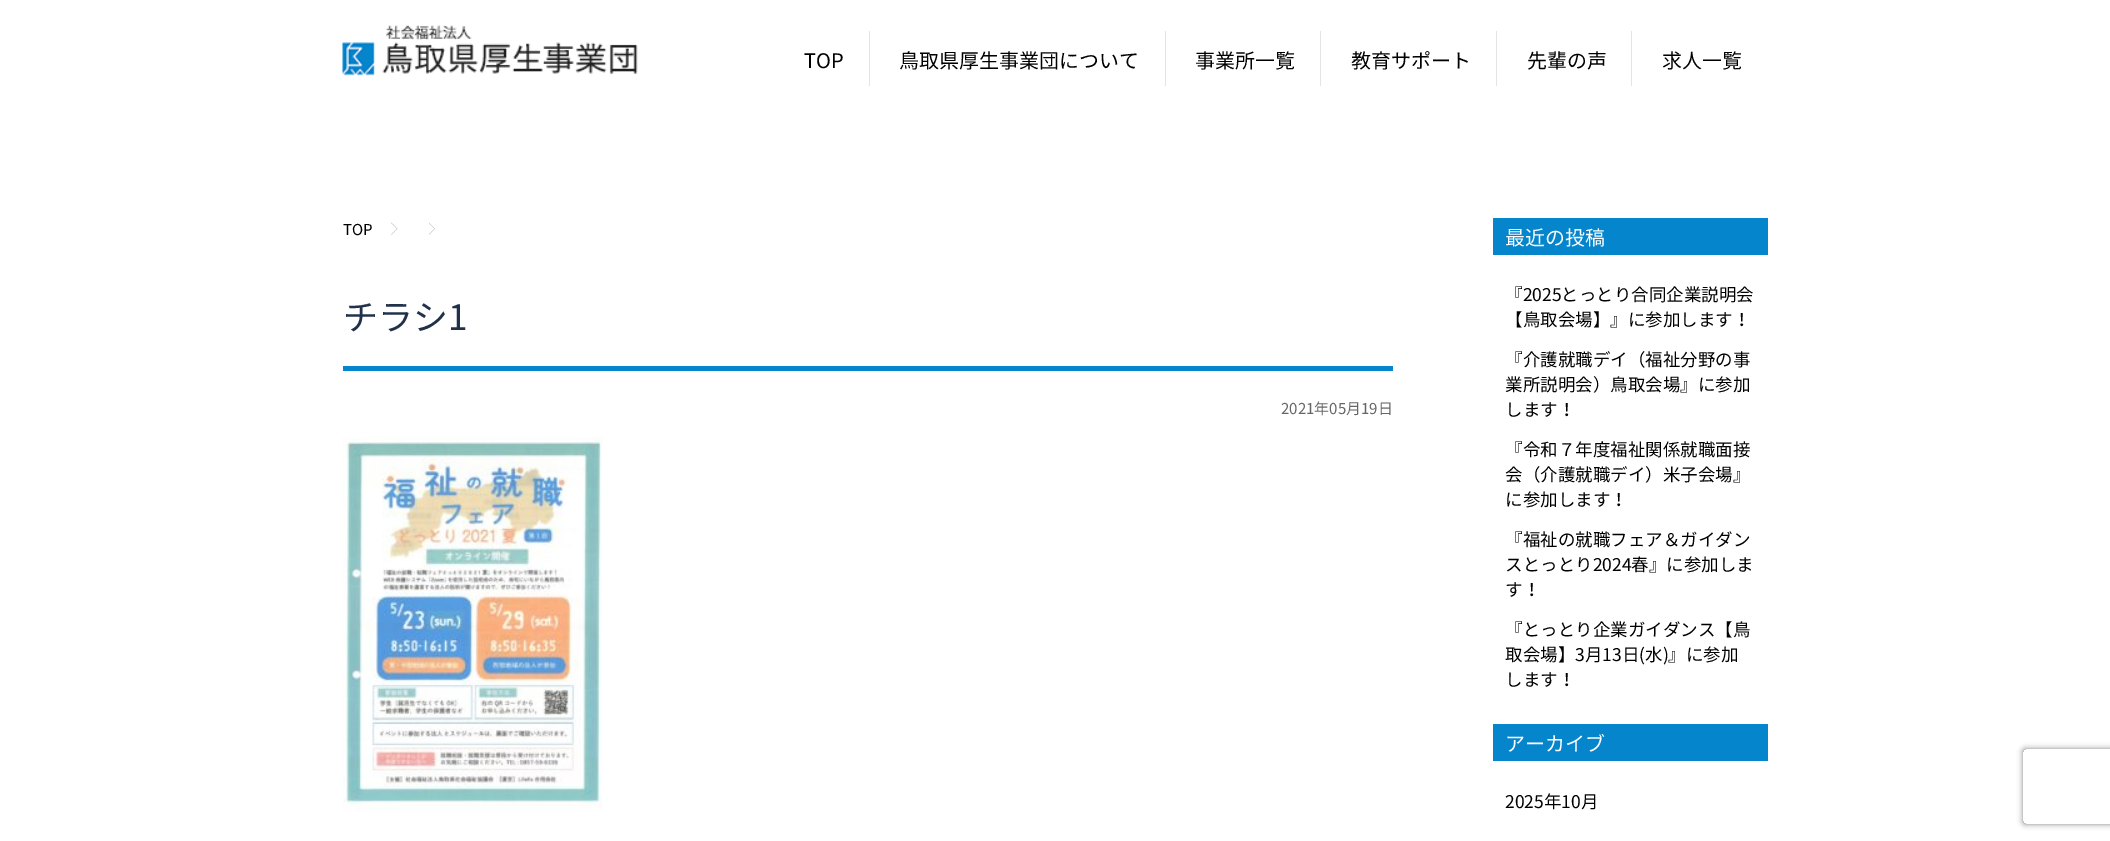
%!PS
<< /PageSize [2110 841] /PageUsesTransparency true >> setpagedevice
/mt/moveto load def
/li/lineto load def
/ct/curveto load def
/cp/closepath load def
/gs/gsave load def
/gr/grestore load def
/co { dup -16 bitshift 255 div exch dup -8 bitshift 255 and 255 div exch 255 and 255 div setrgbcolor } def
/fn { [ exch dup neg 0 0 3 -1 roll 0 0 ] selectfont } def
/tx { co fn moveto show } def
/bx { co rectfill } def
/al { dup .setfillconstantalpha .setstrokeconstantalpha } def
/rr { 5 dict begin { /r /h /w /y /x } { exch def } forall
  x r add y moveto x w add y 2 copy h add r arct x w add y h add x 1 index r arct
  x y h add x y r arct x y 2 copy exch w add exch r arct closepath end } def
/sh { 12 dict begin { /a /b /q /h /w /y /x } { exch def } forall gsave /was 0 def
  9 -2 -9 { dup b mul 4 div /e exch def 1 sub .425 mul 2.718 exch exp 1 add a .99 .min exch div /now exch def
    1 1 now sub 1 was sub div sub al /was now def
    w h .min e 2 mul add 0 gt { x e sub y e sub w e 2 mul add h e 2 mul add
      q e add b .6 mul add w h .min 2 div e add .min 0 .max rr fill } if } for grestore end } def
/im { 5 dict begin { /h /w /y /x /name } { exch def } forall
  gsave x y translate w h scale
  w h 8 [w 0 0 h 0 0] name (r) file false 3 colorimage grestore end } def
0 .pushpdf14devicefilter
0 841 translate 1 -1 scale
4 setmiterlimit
0 0 2110 841 16#FFFFFF bx
(media/1.raw) 342 25 296 51 im
869 31 1 55 16#E4E4E4 bx
1165 31 1 55 16#E4E4E4 bx
1320 31 1 55 16#E4E4E4 bx
1496 31 1 55 16#E4E4E4 bx
1631 31 1 55 16#E4E4E4 bx
(media/2.raw) 391 222 7 13 im
(media/3.raw) 429 222 6 13 im
343 366 1050 5 16#0585CC bx
(media/4.raw) 342 437 261 375 im
1493 218 275 37 16#0585CC bx
1493 724 275 37 16#0585CC bx
gs
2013 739 mt 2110 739 li 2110 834 li 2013 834 li cp 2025.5 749 mt 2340.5 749 li 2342 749 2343 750 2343 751.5 ct 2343 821.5 li 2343 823 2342 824 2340.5 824 ct 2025.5 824 li 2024 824 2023 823 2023 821.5 ct 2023 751.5 li 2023 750 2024 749 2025.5 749 ct cp eoclip newpath
16#808080 co
2023 749 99 75 2.5 3 1 sh
gr
(TOP) 804 68 /NotoSansJP-Regular 20 16#000000 tx
(鳥取県厚生事業団について) 899 68 /NotoSansJP-Regular 20 16#000000 tx
(事業所一覧) 1195 68 /NotoSansJP-Regular 20 16#000000 tx
(教育サポート) 1351 68 /NotoSansJP-Regular 20 16#000000 tx
(先輩の声) 1527 68 /NotoSansJP-Regular 20 16#000000 tx
(求人一覧) 1662 68 /NotoSansJP-Regular 20 16#000000 tx
(TOP) 343 235 /NotoSansJP-Regular 15 16#000000 tx
(チラシ1) 343 330 /NotoSansJP-Regular 35 16#203149 tx
(2021年05月19日) 1281 414 /NotoSansJP-Regular 15 16#666666 tx
(最近の投稿) 1505 245 /NotoSansJP-Regular 20 16#FFFFFF tx
(『2025とっとり合同企業説明会) 1505 301 /NotoSansJP-Regular 17.5 16#000000 tx
(【鳥取会場】』に参加します！) 1505 326 /NotoSansJP-Regular 17.5 16#000000 tx
(『介護就職デイ（福祉分野の事) 1505 366 /NotoSansJP-Regular 17.5 16#000000 tx
(業所説明会）鳥取会場』に参加) 1505 391 /NotoSansJP-Regular 17.5 16#000000 tx
(します！) 1505 416 /NotoSansJP-Regular 17.5 16#000000 tx
(『令和７年度福祉関係就職面接) 1505 456 /NotoSansJP-Regular 17.5 16#000000 tx
(会（介護就職デイ）米子会場』) 1505 481 /NotoSansJP-Regular 17.5 16#000000 tx
(に参加します！) 1505 506 /NotoSansJP-Regular 17.5 16#000000 tx
(『福祉の就職フェア＆ガイダン) 1505 546 /NotoSansJP-Regular 17.5 16#000000 tx
(スとっとり2024春』に参加しま) 1505 571 /NotoSansJP-Regular 17.5 16#000000 tx
(す！) 1505 596 /NotoSansJP-Regular 17.5 16#000000 tx
(『とっとり企業ガイダンス【鳥) 1505 636 /NotoSansJP-Regular 17.5 16#000000 tx
(取会場】3月13日\(水\)』に参加) 1505 661 /NotoSansJP-Regular 17.5 16#000000 tx
(します！) 1505 686 /NotoSansJP-Regular 17.5 16#000000 tx
(アーカイブ) 1505 751 /NotoSansJP-Regular 20 16#FFFFFF tx
(2025年10月) 1505 808 /NotoSansJP-Regular 17.5 16#000000 tx
.poppdf14devicefilter showpage
